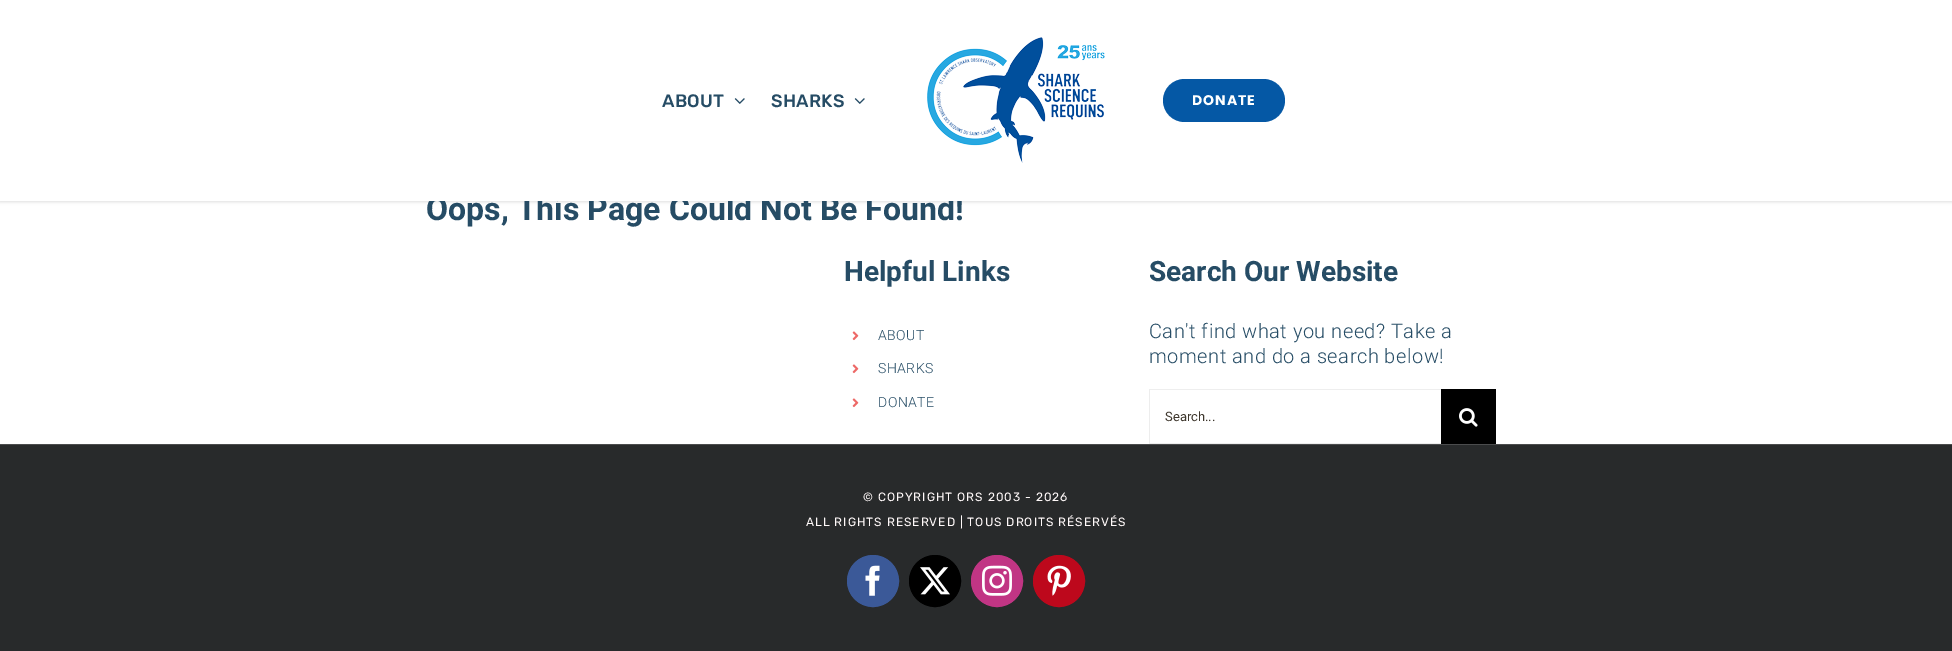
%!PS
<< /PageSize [1952 651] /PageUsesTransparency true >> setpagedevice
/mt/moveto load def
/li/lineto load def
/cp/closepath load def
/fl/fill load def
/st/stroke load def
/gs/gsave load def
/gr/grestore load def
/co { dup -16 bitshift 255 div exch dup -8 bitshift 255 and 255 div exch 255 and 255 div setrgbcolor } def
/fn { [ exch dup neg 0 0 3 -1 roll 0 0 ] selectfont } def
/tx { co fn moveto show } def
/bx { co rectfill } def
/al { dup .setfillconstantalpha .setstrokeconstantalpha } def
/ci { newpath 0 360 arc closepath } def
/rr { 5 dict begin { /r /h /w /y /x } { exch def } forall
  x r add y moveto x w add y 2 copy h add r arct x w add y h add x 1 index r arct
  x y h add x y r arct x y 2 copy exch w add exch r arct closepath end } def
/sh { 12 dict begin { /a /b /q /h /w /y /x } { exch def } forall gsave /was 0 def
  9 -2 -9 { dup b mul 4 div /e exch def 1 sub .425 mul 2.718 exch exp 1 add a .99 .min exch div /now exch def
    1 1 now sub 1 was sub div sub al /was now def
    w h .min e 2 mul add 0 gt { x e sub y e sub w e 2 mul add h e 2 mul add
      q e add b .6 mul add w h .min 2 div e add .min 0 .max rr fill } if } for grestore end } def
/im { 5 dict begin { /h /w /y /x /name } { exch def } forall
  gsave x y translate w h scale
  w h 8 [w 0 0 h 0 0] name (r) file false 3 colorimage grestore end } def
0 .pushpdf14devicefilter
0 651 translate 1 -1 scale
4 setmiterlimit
0 0 1952 651 16#FFFFFF bx
16#000000 co
0 1 1952 201 0 1.5 .12 sh
(media/3.raw) 852 331 7 10 im
(media/3.raw) 852 364 7 10 im
(media/3.raw) 852 398 7 10 im
16#EEEEEE co
1149 389 mt 1441 389 li 1441 390 li 1150 390 li cp fl
1441 444 mt 1149 444 li 1150 443 li 1441 443 li cp fl
0.5 al
16#DCDCDC co
1149 444 mt 1149 389 li 1150 390 li 1150 443 li cp fl
1 al
1441 389 55 55 16#000000 bx
(media/4.raw) 1459 408 19 19 im
0 445 1952 206 16#282A2B bx
0 444 1952 1 16#4B4C4D bx
16#3B5998 co
873 581 25.5 ci gs fl gr
st
(media/5.raw) 865 565 15 31 im
16#000000 co
935 581 25.5 ci gs fl gr
st
(media/6.raw) 920 567 30 28 im
16#C13584 co
997 581 25.5 ci gs fl gr
st
(media/7.raw) 982 565 30 31 im
16#BD081C co
1059 581 25.5 ci gs fl gr
st
(media/8.raw) 1047 565 24 31 im
(Oops, This Page Could Not Be Found!) 426 220 /Heebo-Bold 32 16#264C65 tx
0 0 1952 201 16#FFFFFF bx
16#0558A5 co
1163 79 122 43 21.5 rr fl
/Poppins-Bold 14 fn
16#FFFFFF co
1192 105 mt 1 0 (DONATE) ashow
(media/2.raw) 927 37 178 126 im
(media/1.raw) 854 98 11 6 im
/Rubik-Medium 18 fn
16#264C65 co
771 107 mt .25 0 (SHARKS) ashow
(media/1.raw) 734 98 11 6 im
662 107 mt .25 0 (ABOUT) ashow
(Helpful Links) 844 281 /Heebo-Bold 28 16#264C65 tx
/Roboto-Light 14 fn
878 340 mt .5 0 (ABOUT) ashow
878 373 mt .5 0 (SHARKS) ashow
878 407 mt .5 0 (DONATE) ashow
(Search Our Website) 1149 281 /Heebo-Bold 28 16#264C65 tx
/Roboto-Light 20 fn
1149 338 mt .5 0 (Can't find what you need? Take a) ashow
1149 363 mt .5 0 (moment and do a search below!) ashow
(Search...) 1165 421 /Roboto-Regular 13 16#3E372D tx
/Rubik-Regular 12 fn
16#FFF9F9 co
863 501 mt 1 0 (© COPYRIGHT ORS 2003 - 2026) ashow
806 526 mt 1 0 (ALL RIGHTS RESERVED | TOUS DROITS RÉSERVÉS) ashow
.poppdf14devicefilter showpage
